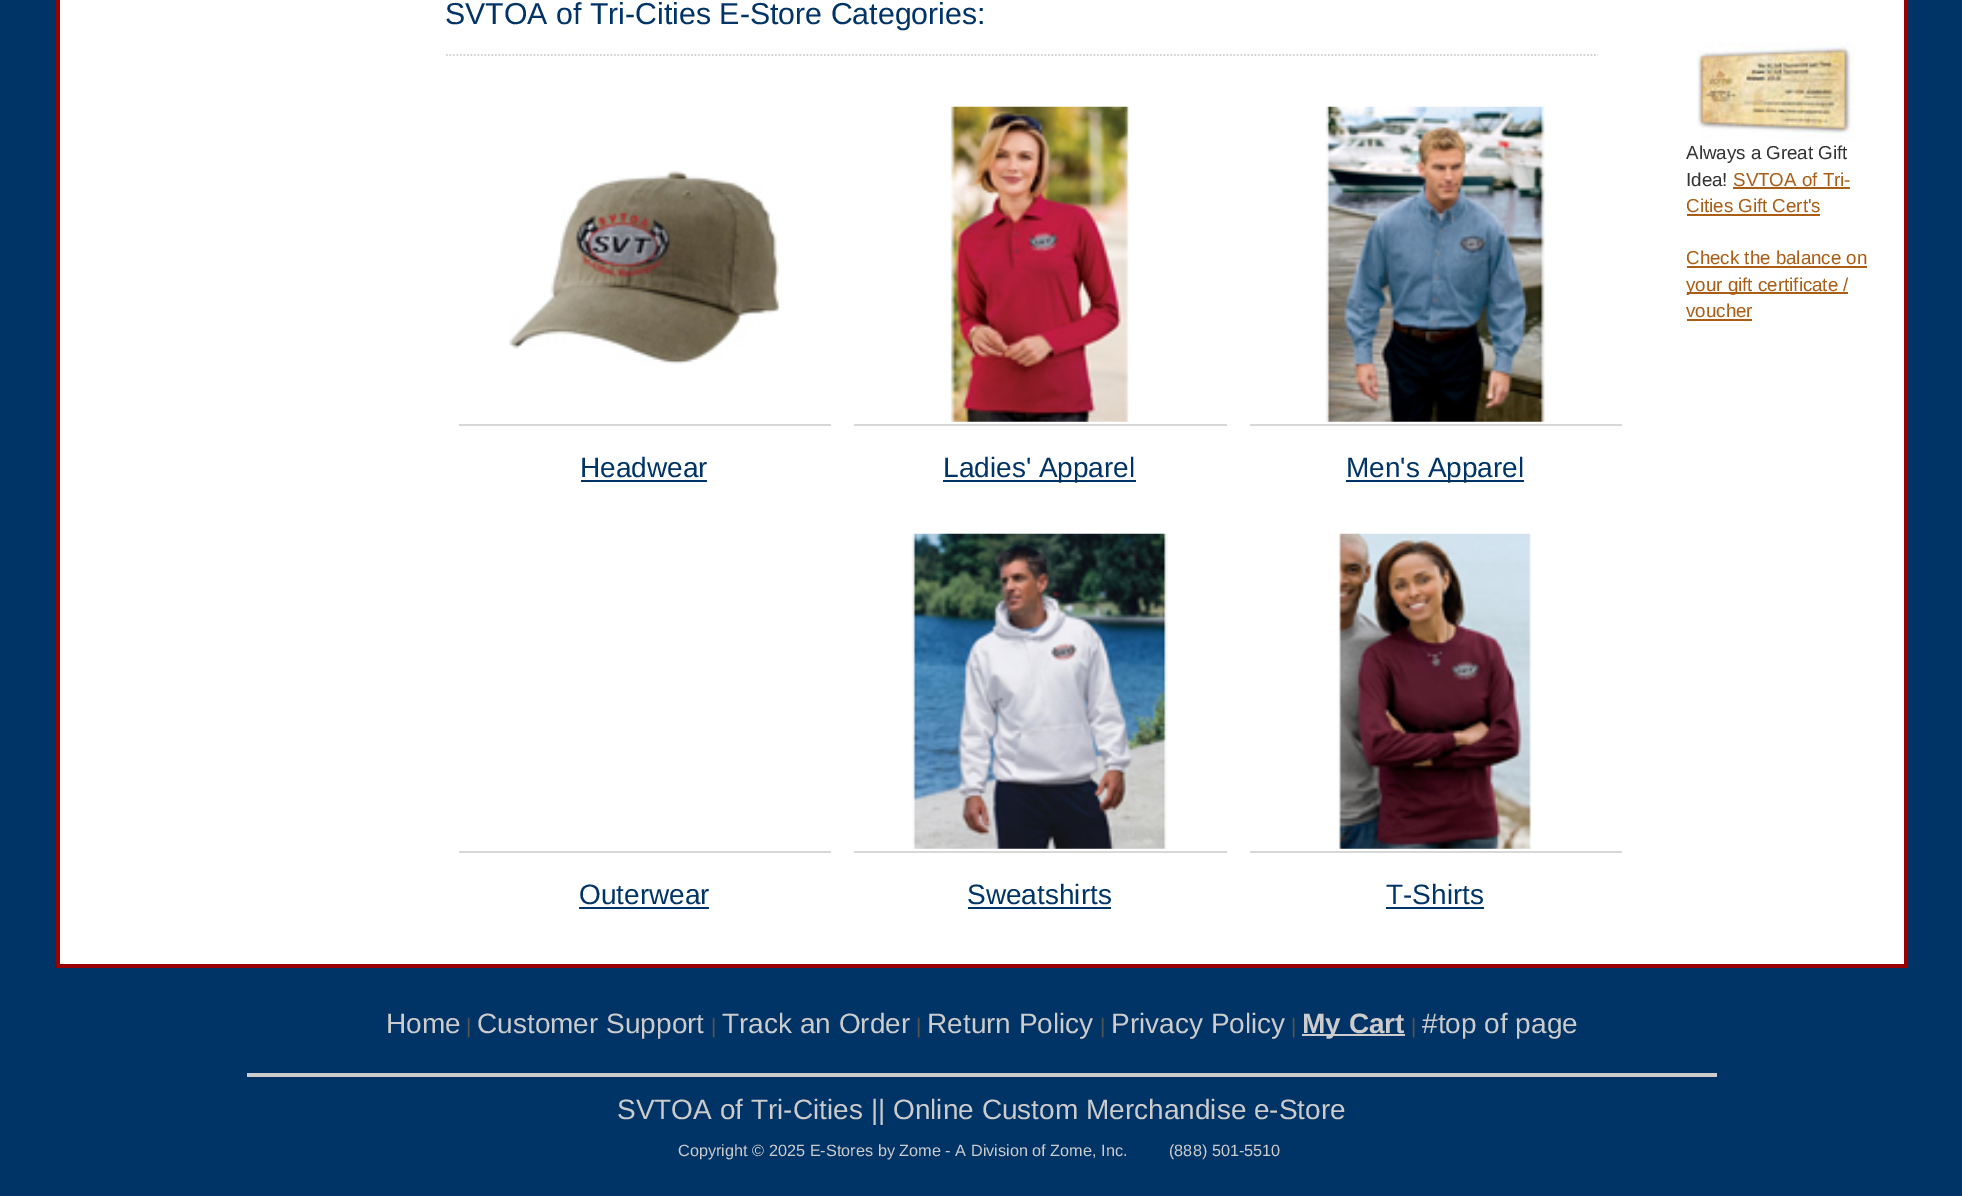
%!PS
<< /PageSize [1962 1196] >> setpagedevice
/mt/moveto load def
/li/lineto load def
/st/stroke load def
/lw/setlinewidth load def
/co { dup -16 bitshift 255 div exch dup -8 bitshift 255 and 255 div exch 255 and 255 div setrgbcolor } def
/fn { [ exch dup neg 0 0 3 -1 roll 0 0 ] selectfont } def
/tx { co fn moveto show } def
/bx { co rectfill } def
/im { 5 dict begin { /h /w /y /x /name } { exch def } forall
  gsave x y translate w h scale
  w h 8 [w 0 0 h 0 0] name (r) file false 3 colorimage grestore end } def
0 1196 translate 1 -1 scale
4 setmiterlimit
0 0 1962 1196 16#003366 bx
60 0 1844 964 16#FFFFFF bx
1904 0 4 968 16#990000 bx
56 964 1852 4 16#990000 bx
56 0 4 968 16#990000 bx
16#D4D4D4 co
1.8 lw
[1.75 1.75] 0 setdash
446 55 mt 1598 55 li st
(media/1.raw) 509 171 272 194 im
459 424 372 2 16#D8D8D8 bx
581 480 126 2 16#003366 bx
(media/2.raw) 950 106 179 316 im
854 424 373 2 16#D8D8D8 bx
943 480 193 2 16#003366 bx
(media/3.raw) 1325 106 220 316 im
1250 424 372 2 16#D8D8D8 bx
1346 480 178 2 16#003366 bx
459 851 372 2 16#D8D8D8 bx
579 907 130 2 16#003366 bx
(media/4.raw) 911 533 257 316 im
854 851 373 2 16#D8D8D8 bx
968 907 143 2 16#003366 bx
(media/5.raw) 1337 533 195 316 im
1250 851 372 2 16#D8D8D8 bx
1386 907 98 2 16#003366 bx
(media/6.raw) 1697 42 158 98 im
1733 187 117 2 16#AA5D15 bx
1687 214 133 2 16#AA5D15 bx
1687 266 180 2 16#AA5D15 bx
1687 292 161 2 16#AA5D15 bx
1687 319 65 2 16#AA5D15 bx
247 1073 1470 4 16#CCCCCC bx
1302 1034 103 2 16#CCCCCC bx
(SVTOA of Tri-Cities E-Store Categories:) 445 24 /LiberationSans-Regular 30.3 16#003366 tx
(Headwear) 580 477 /LiberationSans-Regular 28 16#003366 tx
(Ladies' Apparel) 943 477 /LiberationSans-Regular 28 16#003366 tx
(Men's Apparel) 1346 477 /LiberationSans-Regular 28 16#003366 tx
(Outerwear) 579 904 /LiberationSans-Regular 28 16#003366 tx
(Sweatshirts) 967 904 /LiberationSans-Regular 28 16#003366 tx
(T-Shirts) 1386 904 /LiberationSans-Regular 28 16#003366 tx
(Always a Great Gift) 1686 159 /LiberationSans-Regular 18.75 16#333333 tx
(Idea!) 1686 186 /LiberationSans-Regular 18.75 16#333333 tx
(SVTOA of Tri-) 1733 186 /LiberationSans-Regular 18.75 16#AA5D15 tx
(Cities Gift Cert's) 1686 212 /LiberationSans-Regular 18.75 16#AA5D15 tx
(Check the balance on) 1686 264 /LiberationSans-Regular 18.75 16#AA5D15 tx
(your gift certificate /) 1686 291 /LiberationSans-Regular 18.75 16#AA5D15 tx
(voucher) 1686 317 /LiberationSans-Regular 18.75 16#AA5D15 tx
(Home) 386 1033 /LiberationSans-Regular 28 16#CCCCCC tx
(|) 466 1033 /LiberationSans-Regular 21 16#545451 tx
(Customer Support) 477 1033 /LiberationSans-Regular 28 16#CCCCCC tx
(|) 711 1033 /LiberationSans-Regular 21 16#545451 tx
(Track an Order) 722 1033 /LiberationSans-Regular 28 16#CCCCCC tx
(|) 916 1033 /LiberationSans-Regular 21 16#545451 tx
(Return Policy) 927 1033 /LiberationSans-Regular 28 16#CCCCCC tx
(|) 1100 1033 /LiberationSans-Regular 21 16#545451 tx
(Privacy Policy) 1111 1033 /LiberationSans-Regular 28 16#CCCCCC tx
(|) 1291 1033 /LiberationSans-Regular 21 16#545451 tx
(My Cart) 1302 1033 /LiberationSans-Bold 28 16#CCCCCC tx
(|) 1411 1033 /LiberationSans-Regular 21 16#545451 tx
(#top of page) 1422 1033 /LiberationSans-Regular 28 16#CCCCCC tx
(SVTOA of Tri-Cities || Online Custom Merchandise e-Store) 617 1119 /LiberationSans-Regular 28 16#CCCCCC tx
(Copyright © 2025 E-Stores by Zome - A Division of Zome, Inc.) 678 1156 /LiberationSans-Regular 16.3 16#CCCCCC tx
(\(888\) 501-5510) 1169 1156 /LiberationSans-Regular 16.3 16#CCCCCC tx
showpage
